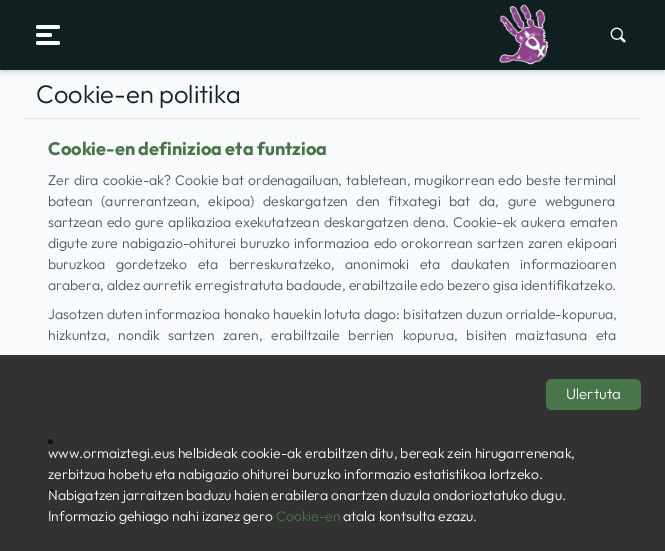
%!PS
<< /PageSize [665 551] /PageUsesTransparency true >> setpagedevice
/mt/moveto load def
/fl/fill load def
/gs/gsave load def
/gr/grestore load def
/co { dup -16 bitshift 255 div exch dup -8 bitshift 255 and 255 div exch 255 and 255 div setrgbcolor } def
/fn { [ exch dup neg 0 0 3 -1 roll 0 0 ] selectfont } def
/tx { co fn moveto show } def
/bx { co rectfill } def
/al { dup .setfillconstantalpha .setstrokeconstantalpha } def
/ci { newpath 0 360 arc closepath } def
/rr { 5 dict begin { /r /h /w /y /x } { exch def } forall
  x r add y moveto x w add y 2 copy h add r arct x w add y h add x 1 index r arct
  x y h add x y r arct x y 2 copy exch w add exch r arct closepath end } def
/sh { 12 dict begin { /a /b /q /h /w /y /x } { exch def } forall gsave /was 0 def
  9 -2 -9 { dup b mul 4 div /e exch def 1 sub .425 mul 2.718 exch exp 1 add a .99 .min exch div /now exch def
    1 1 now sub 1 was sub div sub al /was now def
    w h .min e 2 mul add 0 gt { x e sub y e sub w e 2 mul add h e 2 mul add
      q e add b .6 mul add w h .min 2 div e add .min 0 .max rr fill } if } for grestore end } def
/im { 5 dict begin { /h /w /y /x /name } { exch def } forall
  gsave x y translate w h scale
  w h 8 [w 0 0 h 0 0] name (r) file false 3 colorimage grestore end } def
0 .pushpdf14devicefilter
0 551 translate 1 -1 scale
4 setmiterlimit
0 0 665 551 16#F9FAFB bx
0 0 665 70 16#102020 bx
gs
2 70 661 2 rectclip
16#000000 co
2 4 661 66 0 2 .1 sh
gr
gs
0 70 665 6 rectclip
16#000000 co
1 5 663 68 0 3 .1 sh
gr
16#FFFFFF co
36 25 24 4 2 rr fl
36 33 16 4 2 rr fl
36 41 24 4 2 rr fl
(media/1.raw) 499 4 50 61 im
(media/2.raw) 610 27 16 16 im
24 118 617 1 16#E5E7EB bx
16#4B5563 co
50.5 441.5 2.5 ci fl
50.5 491.5 2.5 ci fl
0.8 al
0 355 665 196 16#000000 bx
1 al
0 354 665 1 16#FFFFFF bx
16#487549 co
546 379 95 31 6 rr fl
(Cookie-en politika) 36 103 /Outfit-Light 25.5 16#102020 tx
(Cookie-en definizioa eta funtzioa) 48 155 /Outfit-Bold 18.2 16#487549 tx
/Outfit-Light 14 fn
16#4B5563 co
48 185 mt 1.1 0 32 (Zer dira cookie-ak? Cookie bat ordenagailuan, tabletean, mugikorrean edo beste terminal) widthshow
48 206 mt 5.5 0 32 (batean \(aurrerantzean, ekipoa\) deskargatzen den fitxategi bat da, gure webgunera) widthshow
48 227 mt 1.5 0 32 (sartzean edo gure aplikazioa exekutatzean deskargatzen dena. Cookie-ek aukera ematen) widthshow
48 248 mt 1.25 0 32 (digute zure nabigazio-ohiturei buruzko informazioa edo orokorrean sartzen zaren ekipoari) widthshow
48 269 mt 7.5 0 32 (buruzkoa gordetzeko eta berreskuratzeko, anonimoki eta daukaten informazioaren) widthshow
(arabera, aldez aurretik erregistratuta badaude, erabiltzaile edo bezero gisa identifikatzeko.) 48 290 /Outfit-Light 14 16#4B5563 tx
48 319 mt .25 0 32 (Jasotzen duten informazioa honako hauekin lotuta dago: bisitatzen duzun orrialde-kopurua,) widthshow
48 340 mt 5.75 0 32 (hizkuntza, nondik sartzen zaren, erabiltzaile berrien kopurua, bisiten maiztasuna eta) widthshow
(Ulertuta) 566 399 /Outfit-Light 15 16#FFFFFF tx
(www.ormaiztegi.eus helbideak cookie-ak erabiltzen ditu, bereak zein hirugarrenenak,) 48 458 /Outfit-Light 14 16#FFFFFF tx
(zerbitzua hobetu eta nabigazio ohiturei buruzko informazio estatistikoa lortzeko.) 48 479 /Outfit-Light 14 16#FFFFFF tx
(Nabigatzen jarraitzen baduzu haien erabilera onartzen duzula ondorioztatuko dugu.) 48 500 /Outfit-Light 14 16#FFFFFF tx
(Informazio gehiago nahi izanez gero) 48 521 /Outfit-Light 14 16#FFFFFF tx
(Cookie-en) 276 521 /Outfit-Light 14 16#487549 tx
(atala kontsulta ezazu.) 343 521 /Outfit-Light 14 16#FFFFFF tx
.poppdf14devicefilter showpage
